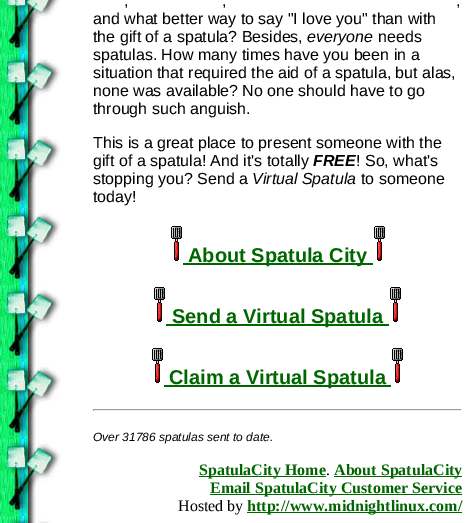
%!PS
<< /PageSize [470 523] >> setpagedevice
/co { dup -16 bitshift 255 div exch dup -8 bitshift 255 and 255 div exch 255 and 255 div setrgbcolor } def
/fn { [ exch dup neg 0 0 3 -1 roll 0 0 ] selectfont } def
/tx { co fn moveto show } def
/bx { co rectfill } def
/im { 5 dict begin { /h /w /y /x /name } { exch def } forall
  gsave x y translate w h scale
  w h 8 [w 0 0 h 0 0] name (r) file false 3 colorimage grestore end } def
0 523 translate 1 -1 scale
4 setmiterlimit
0 0 470 523 16#FFFFFF bx
(media/1.raw) 0 0 61 523 im
(media/2.raw) 171 226 11 35 im
183 263 190 2 16#006600 bx
(media/2.raw) 374 226 11 35 im
(media/2.raw) 154 287 11 35 im
166 324 223 2 16#006600 bx
(media/2.raw) 390 287 11 35 im
(media/2.raw) 152 348 11 35 im
164 385 227 2 16#006600 bx
(media/2.raw) 392 348 11 35 im
93 409 369 1 16#9F9F9F bx
461 409 1 2 16#EEEEEE bx
93 410 369 1 16#EEEEEE bx
93 409 1 2 16#9F9F9F bx
199 476 127 1 16#006600 bx
334 476 128 1 16#006600 bx
210 494 252 1 16#006600 bx
247 512 215 1 16#006600 bx
(,) 124 6 /LiberationSans-Regular 16 16#000000 tx
(,) 222 6 /LiberationSans-Regular 16 16#000000 tx
(,) 456 6 /LiberationSans-Regular 16 16#000000 tx
(and what better way to say "I love you" than with) 93 24 /LiberationSans-Regular 16 16#000000 tx
(the gift of a spatula? Besides,) 93 42 /LiberationSans-Regular 16 16#000000 tx
(everyone) 307 42 /LiberationSans-Italic 16 16#000000 tx
(needs) 378 42 /LiberationSans-Regular 16 16#000000 tx
(spatulas. How many times have you been in a) 93 60 /LiberationSans-Regular 16 16#000000 tx
(situation that required the aid of a spatula, but alas,) 93 78 /LiberationSans-Regular 16 16#000000 tx
(none was available? No one should have to go) 93 96 /LiberationSans-Regular 16 16#000000 tx
(through such anguish.) 93 114 /LiberationSans-Regular 16 16#000000 tx
(This is a great place to present someone with the) 93 148 /LiberationSans-Regular 16 16#000000 tx
(gift of a spatula! And it's totally) 93 166 /LiberationSans-Regular 16 16#000000 tx
(FREE) 313 166 /LiberationSans-BoldItalic 16 16#000000 tx
(! So, what's) 356 166 /LiberationSans-Regular 16 16#000000 tx
(stopping you? Send a) 93 184 /LiberationSans-Regular 16 16#000000 tx
(Virtual Spatula) 252 184 /LiberationSans-Italic 16 16#000000 tx
(to someone) 361 184 /LiberationSans-Regular 16 16#000000 tx
(today!) 93 202 /LiberationSans-Regular 16 16#000000 tx
(About Spatula City) 188 262 /LiberationSans-Bold 20 16#006600 tx
(Send a Virtual Spatula) 172 323 /LiberationSans-Bold 20 16#006600 tx
(Claim a Virtual Spatula) 169 384 /LiberationSans-Bold 20 16#006600 tx
(Over 31786 spatulas sent to date.) 93 441 /LiberationSans-Italic 12 16#000000 tx
(SpatulaCity Home) 199 475 /LiberationSerif-Bold 16 16#006600 tx
(.) 326 475 /LiberationSerif-Regular 16 16#000000 tx
(About SpatulaCity) 334 475 /LiberationSerif-Bold 16 16#006600 tx
(Email SpatulaCity Customer Service) 210 493 /LiberationSerif-Bold 16 16#006600 tx
(Hosted by) 178 511 /LiberationSerif-Regular 16 16#000000 tx
(http://www.midnightlinux.com/) 247 511 /LiberationSerif-Bold 16 16#006600 tx
showpage
